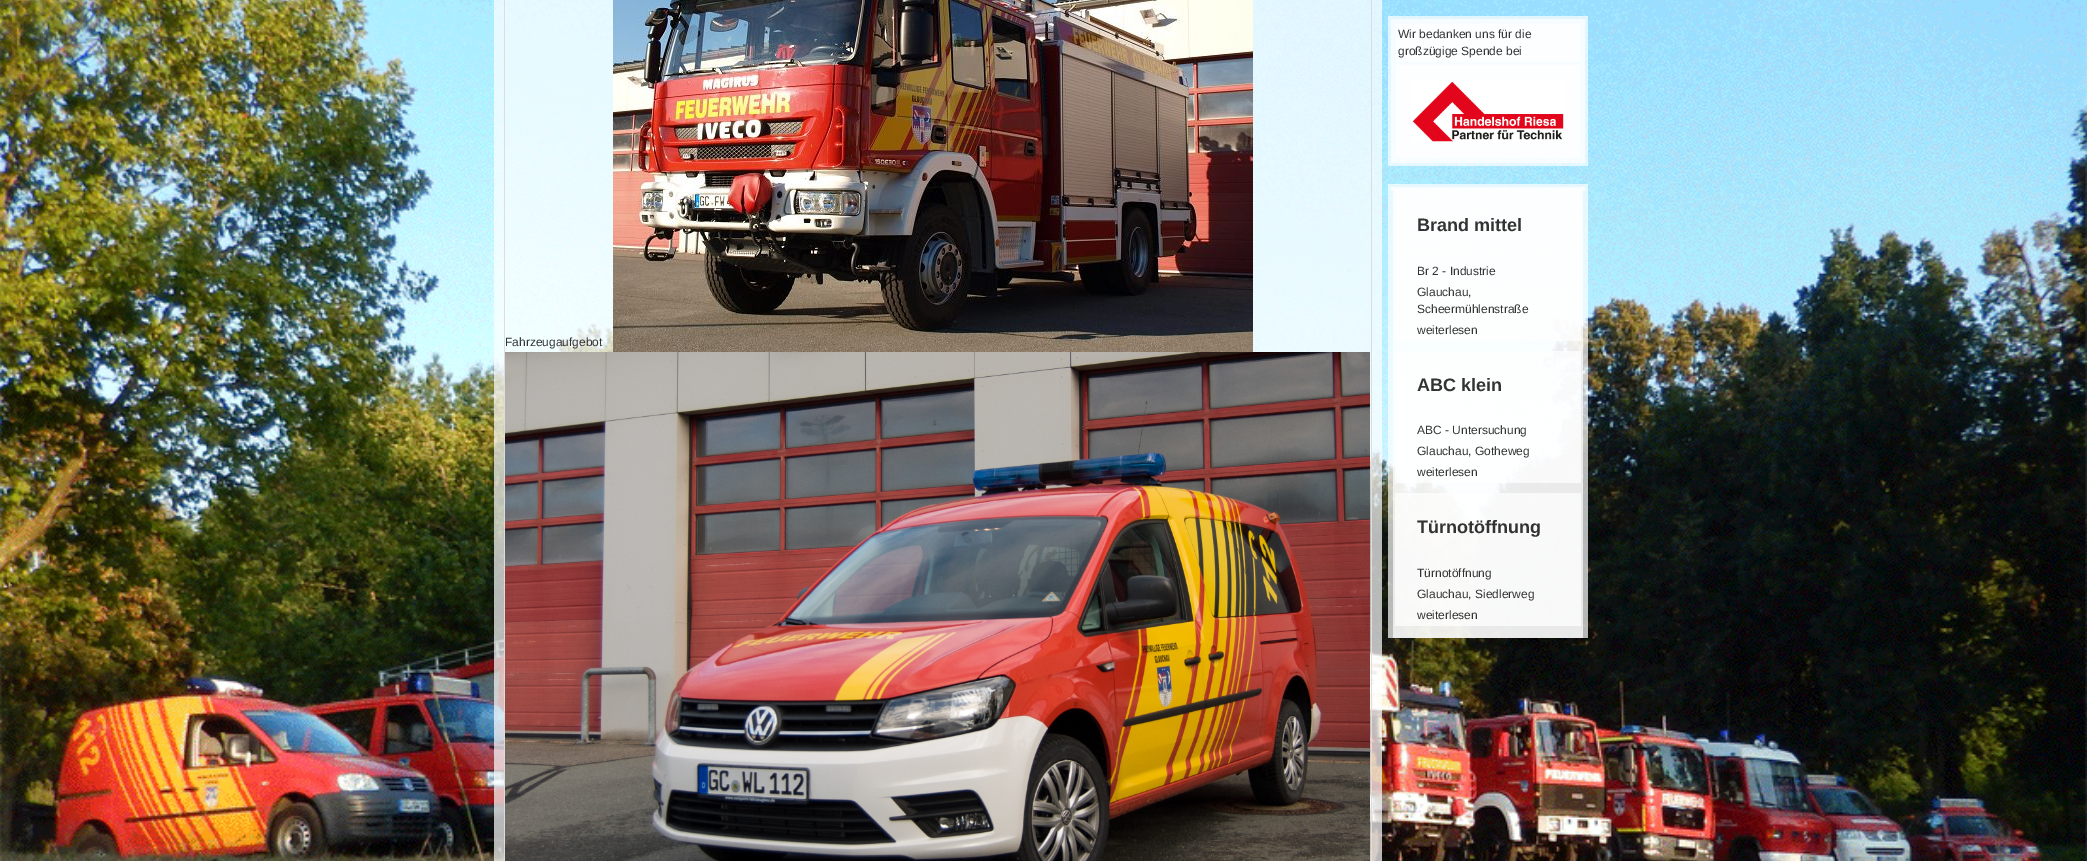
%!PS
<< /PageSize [2087 861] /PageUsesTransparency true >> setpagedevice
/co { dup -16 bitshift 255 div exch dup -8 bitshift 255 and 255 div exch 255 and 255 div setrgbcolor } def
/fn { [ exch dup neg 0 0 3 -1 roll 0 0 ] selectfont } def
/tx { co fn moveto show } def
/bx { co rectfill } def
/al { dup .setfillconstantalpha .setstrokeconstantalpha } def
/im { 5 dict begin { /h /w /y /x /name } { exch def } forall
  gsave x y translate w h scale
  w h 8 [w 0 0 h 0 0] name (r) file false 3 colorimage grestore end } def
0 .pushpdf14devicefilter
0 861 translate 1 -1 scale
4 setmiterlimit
0 0 2087 861 16#FFFFFF bx
(media/1.raw) 0 0 2087 861 im
0.7 al
494 0 888 861 16#FFFFFF bx
1 al
1371 0 1 861 16#DDDDDD bx
504 0 1 861 16#DDDDDD bx
(media/2.raw) 613 0 640 352 im
(media/3.raw) 505 352 865 509 im
0.7 al
1388 16 200 150 16#FFFFFF bx
1391 19 194 144 16#FFFFFF bx
1 al
1396 24 184 38 16#FCFEFF bx
1396 65 184 93 16#FCFEFF bx
(media/4.raw) 1412 81 152 61 im
0.7 al
1388 184 200 454 16#FFFFFF bx
1391 187 194 4 16#FFFFFF bx
1393 189 190 449 16#FFFFFF bx
1395 191 186 70 16#FFFFFF bx
1 al
1395 261 186 21 16#FDFEFF bx
0.7 al
1395 282 186 38 16#FFFFFF bx
1395 320 186 21 16#FFFFFF bx
1395 351 186 69 16#FFFFFF bx
1395 420 186 21 16#FFFFFF bx
1395 441 186 21 16#FFFFFF bx
1395 462 186 21 16#FFFFFF bx
1395 493 186 70 16#FFFFFF bx
1395 563 186 21 16#FFFFFF bx
1395 584 186 21 16#FFFFFF bx
1395 605 186 21 16#FFFFFF bx
1 al
(Fahrzeugaufgebot) 505 346 /LiberationSans-Regular 12 16#333333 tx
(Wir bedanken uns für die) 1398 38 /LiberationSans-Regular 12 16#333333 tx
(großzügige Spende bei) 1398 55 /LiberationSans-Regular 12 16#333333 tx
(Brand mittel) 1417 231 /LiberationSans-Bold 18 16#333333 tx
(Br 2 - Industrie) 1417 275 /LiberationSans-Regular 12 16#333333 tx
(Glauchau,) 1417 296 /LiberationSans-Regular 12 16#333333 tx
(Scheermühlenstraße) 1417 313 /LiberationSans-Regular 12 16#333333 tx
(weiterlesen) 1417 334 /LiberationSans-Regular 12 16#333333 tx
(ABC klein) 1417 391 /LiberationSans-Bold 18 16#333333 tx
(ABC - Untersuchung) 1417 434 /LiberationSans-Regular 12 16#333333 tx
(Glauchau, Gotheweg) 1417 455 /LiberationSans-Regular 12 16#333333 tx
(weiterlesen) 1417 476 /LiberationSans-Regular 12 16#333333 tx
(Türnotöffnung) 1417 533 /LiberationSans-Bold 18 16#333333 tx
(Türnotöffnung) 1417 577 /LiberationSans-Regular 12 16#333333 tx
(Glauchau, Siedlerweg) 1417 598 /LiberationSans-Regular 12 16#333333 tx
(weiterlesen) 1417 619 /LiberationSans-Regular 12 16#333333 tx
.poppdf14devicefilter showpage
